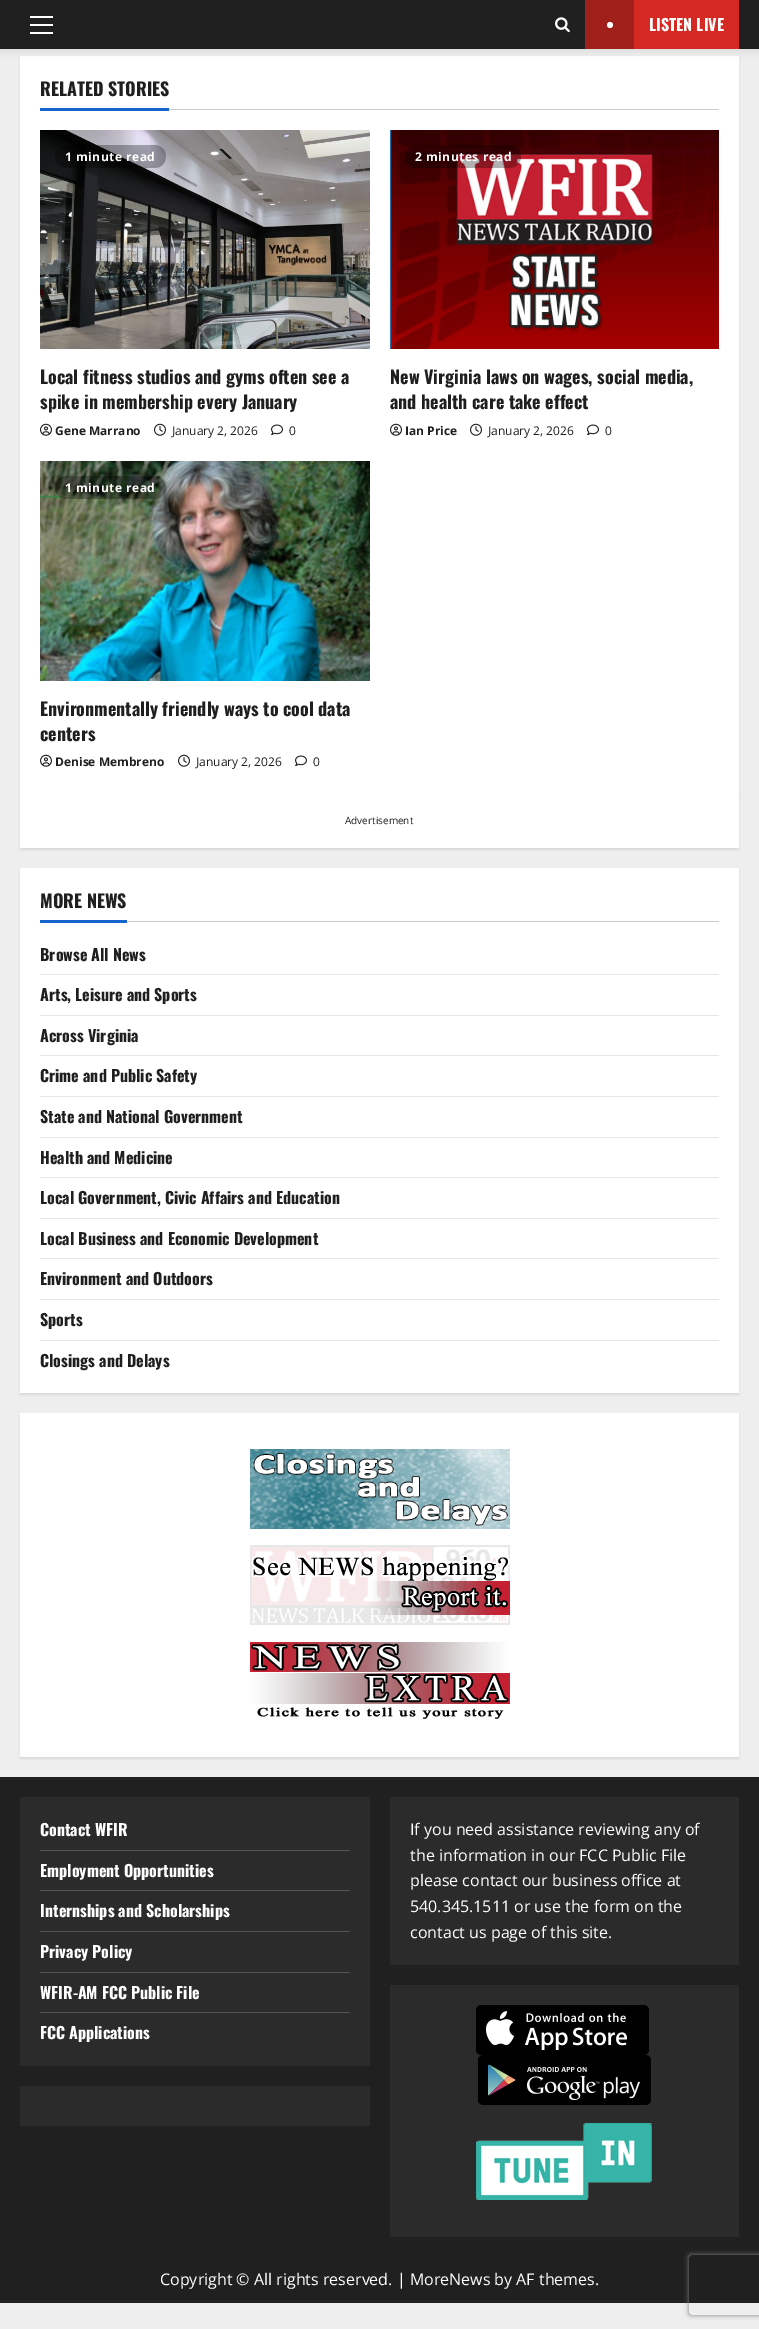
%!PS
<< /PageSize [759 2329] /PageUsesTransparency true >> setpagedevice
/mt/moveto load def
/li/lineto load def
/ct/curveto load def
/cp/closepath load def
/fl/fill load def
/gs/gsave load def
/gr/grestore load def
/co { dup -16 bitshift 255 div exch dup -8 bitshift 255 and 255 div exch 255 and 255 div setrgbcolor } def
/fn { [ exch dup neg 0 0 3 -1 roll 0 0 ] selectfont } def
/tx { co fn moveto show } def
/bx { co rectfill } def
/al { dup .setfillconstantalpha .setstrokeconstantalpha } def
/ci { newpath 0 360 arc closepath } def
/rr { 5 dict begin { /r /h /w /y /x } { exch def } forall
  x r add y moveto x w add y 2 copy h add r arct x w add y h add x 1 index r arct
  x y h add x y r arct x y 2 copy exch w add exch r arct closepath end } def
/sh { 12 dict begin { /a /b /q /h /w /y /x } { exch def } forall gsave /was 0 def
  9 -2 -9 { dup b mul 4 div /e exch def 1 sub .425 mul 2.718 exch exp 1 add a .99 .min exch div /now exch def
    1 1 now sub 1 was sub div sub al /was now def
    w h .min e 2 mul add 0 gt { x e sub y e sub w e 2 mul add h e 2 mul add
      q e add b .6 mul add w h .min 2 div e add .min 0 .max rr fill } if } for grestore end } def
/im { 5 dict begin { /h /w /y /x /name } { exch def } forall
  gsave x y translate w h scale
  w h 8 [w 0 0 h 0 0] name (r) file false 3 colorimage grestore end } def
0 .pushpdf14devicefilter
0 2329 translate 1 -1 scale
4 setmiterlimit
0 0 759 2329 16#EEEEEE bx
16#000000 co
20 58 719 736 0 1 .08 sh
20 56 719 736 16#FFFFFF bx
16#000000 co
0 2 759 49 0 4 .08 sh
0 0 759 49 16#202020 bx
30 24 23 2 16#FFFFFF bx
30 16 23 2 16#FFFFFF bx
30 32 23 2 16#FFFFFF bx
(media/1.raw) 555 17 15 16 im
634 0 105 49 16#D72924 bx
585 0 49 49 16#A11F1B bx
16#FFFFFF co
610 25 3 ci fl
169 109 550 1 16#CCCCCC bx
40 108 129 3 16#1665CF bx
(media/2.raw) 40 130 330 219 im
0.3 al
16#000000 co
55 145 111 23 11.5 rr fl
1 al
(media/3.raw) 40 423 12 13 im
(media/4.raw) 154 423 12 13 im
(media/5.raw) 271 424 12 11 im
(media/6.raw) 390 130 329 219 im
0.3 al
405 145 116 23 11.5 rr fl
1 al
(media/3.raw) 390 423 12 13 im
(media/4.raw) 470 423 12 13 im
(media/5.raw) 587 424 12 11 im
(media/7.raw) 40 461 330 220 im
0.3 al
55 476 111 23 11.5 rr fl
1 al
(media/3.raw) 40 754 12 13 im
(media/4.raw) 178 754 12 13 im
(media/5.raw) 295 755 12 11 im
20 794 719 56 0 1 .08 sh
20 792 719 56 16#FFFFFF bx
16#000000 co
20 870 719 525 0 1 .08 sh
20 868 719 525 16#FFFFFF bx
127 921 592 1 16#CCCCCC bx
40 920 87 3 16#1665CF bx
40 974 679 1 16#E6E6E6 bx
40 1015 679 1 16#E6E6E6 bx
40 1055 679 1 16#E6E6E6 bx
40 1096 679 1 16#E6E6E6 bx
40 1137 679 1 16#E6E6E6 bx
40 1177 679 1 16#E6E6E6 bx
40 1218 679 1 16#E6E6E6 bx
40 1258 679 1 16#E6E6E6 bx
40 1299 679 1 16#E6E6E6 bx
40 1340 679 1 16#E6E6E6 bx
16#000000 co
20 1415 719 344 0 1 .08 sh
20 1413 719 344 16#FFFFFF bx
(media/8.raw) 250 1449 260 80 im
(media/9.raw) 250 1545 260 80 im
(media/10.raw) 250 1642 260 77 im
0 1777 759 526 16#202020 bx
20 1797 350 269 16#2B2B2B bx
40 1850 310 1 16#555555 bx
40 1890 310 1 16#555555 bx
40 1931 310 1 16#555555 bx
40 1972 310 1 16#555555 bx
40 2012 310 1 16#555555 bx
20 2086 350 40 16#2B2B2B bx
390 1797 349 168 16#2B2B2B bx
390 1985 349 252 16#2B2B2B bx
(media/11.raw) 476 2005 173 50 im
(media/12.raw) 478 2055 173 50 im
(media/13.raw) 476 2123 176 77 im
gs
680 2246 mt 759 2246 li 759 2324 li 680 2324 li cp 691 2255 mt 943 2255 li 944 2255 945 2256 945 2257 ct 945 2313 li 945 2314 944 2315 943 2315 ct 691 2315 li 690 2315 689 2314 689 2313 ct 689 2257 li 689 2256 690 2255 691 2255 ct cp eoclip newpath
16#808080 co
689 2255 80 60 2 2.5 1 sh
gr
(LISTEN LIVE) 649 31 /Oswald-Bold 16 16#FFFFFF tx
(RELATED STORIES) 40 96 /Oswald-Bold 18 16#1F1F1F tx
/OpenSans-Bold 12 fn
16#FFFFFF co
65 161 mt .5 0 (1 minute read) ashow
(Local fitness studios and gyms often see a) 40 384 /Oswald-Bold 18 16#1F1F1F tx
(spike in membership every January) 40 409 /Oswald-Bold 18 16#1F1F1F tx
(Gene Marrano) 55 435 /OpenSans-Bold 12 16#1F1F1F tx
(January 2, 2026) 172 435 /OpenSans-Regular 12 16#1F1F1F tx
(0) 289 435 /OpenSans-Regular 12 16#1F1F1F tx
/OpenSans-Bold 12 fn
16#FFFFFF co
415 161 mt .5 0 (2 minutes read) ashow
(New Virginia laws on wages, social media,) 390 384 /Oswald-Bold 18 16#1F1F1F tx
(and health care take effect) 390 409 /Oswald-Bold 18 16#1F1F1F tx
(Ian Price) 405 435 /OpenSans-Bold 12 16#1F1F1F tx
(January 2, 2026) 488 435 /OpenSans-Regular 12 16#1F1F1F tx
(0) 605 435 /OpenSans-Regular 12 16#1F1F1F tx
/OpenSans-Bold 12 fn
16#FFFFFF co
65 492 mt .5 0 (1 minute read) ashow
(Environmentally friendly ways to cool data) 40 716 /Oswald-Bold 18 16#1F1F1F tx
(centers) 40 741 /Oswald-Bold 18 16#1F1F1F tx
(Denise Membreno) 55 766 /OpenSans-Bold 12 16#1F1F1F tx
(January 2, 2026) 196 766 /OpenSans-Regular 12 16#1F1F1F tx
(0) 313 766 /OpenSans-Regular 12 16#1F1F1F tx
(Advertisement) 345 824 /OpenSans-Regular 10 16#1F1F1F tx
(MORE NEWS) 40 908 /Oswald-Bold 18 16#1F1F1F tx
(Browse All News) 40 961 /Oswald-Bold 16 16#1F1F1F tx
(Arts, Leisure and Sports) 40 1001 /Oswald-Bold 16 16#1F1F1F tx
(Across Virginia) 40 1042 /Oswald-Bold 16 16#1F1F1F tx
(Crime and Public Safety) 40 1082 /Oswald-Bold 16 16#1F1F1F tx
(State and National Government) 40 1123 /Oswald-Bold 16 16#1F1F1F tx
(Health and Medicine) 40 1164 /Oswald-Bold 16 16#1F1F1F tx
(Local Government, Civic Affairs and Education) 40 1204 /Oswald-Bold 16 16#1F1F1F tx
(Local Business and Economic Development) 40 1245 /Oswald-Bold 16 16#1F1F1F tx
(Environment and Outdoors) 40 1285 /Oswald-Bold 16 16#1F1F1F tx
(Sports) 40 1326 /Oswald-Bold 16 16#1F1F1F tx
(Closings and Delays) 40 1367 /Oswald-Bold 16 16#1F1F1F tx
(Contact WFIR) 40 1836 /Oswald-Bold 16 16#FFFFFF tx
(Employment Opportunities) 40 1877 /Oswald-Bold 16 16#FFFFFF tx
(Internships and Scholarships) 40 1917 /Oswald-Bold 16 16#FFFFFF tx
(Privacy Policy) 40 1958 /Oswald-Bold 16 16#FFFFFF tx
(WFIR-AM FCC Public File) 40 1999 /Oswald-Bold 16 16#FFFFFF tx
(FCC Applications) 40 2039 /Oswald-Bold 16 16#FFFFFF tx
(If you need assistance reviewing any of) 410 1835 /OpenSans-Regular 16 16#FFFFFF tx
(the information in our FCC Public File) 410 1861 /OpenSans-Regular 16 16#FFFFFF tx
(please contact our business office at) 410 1886 /OpenSans-Regular 16 16#FFFFFF tx
(540.345.1511 or use the form on the) 410 1912 /OpenSans-Regular 16 16#FFFFFF tx
(contact us page of this site.) 410 1938 /OpenSans-Regular 16 16#FFFFFF tx
(Copyright © All rights reserved. | MoreNews by AF themes.) 160 2285 /OpenSans-Regular 16 16#FFFFFF tx
.poppdf14devicefilter showpage
